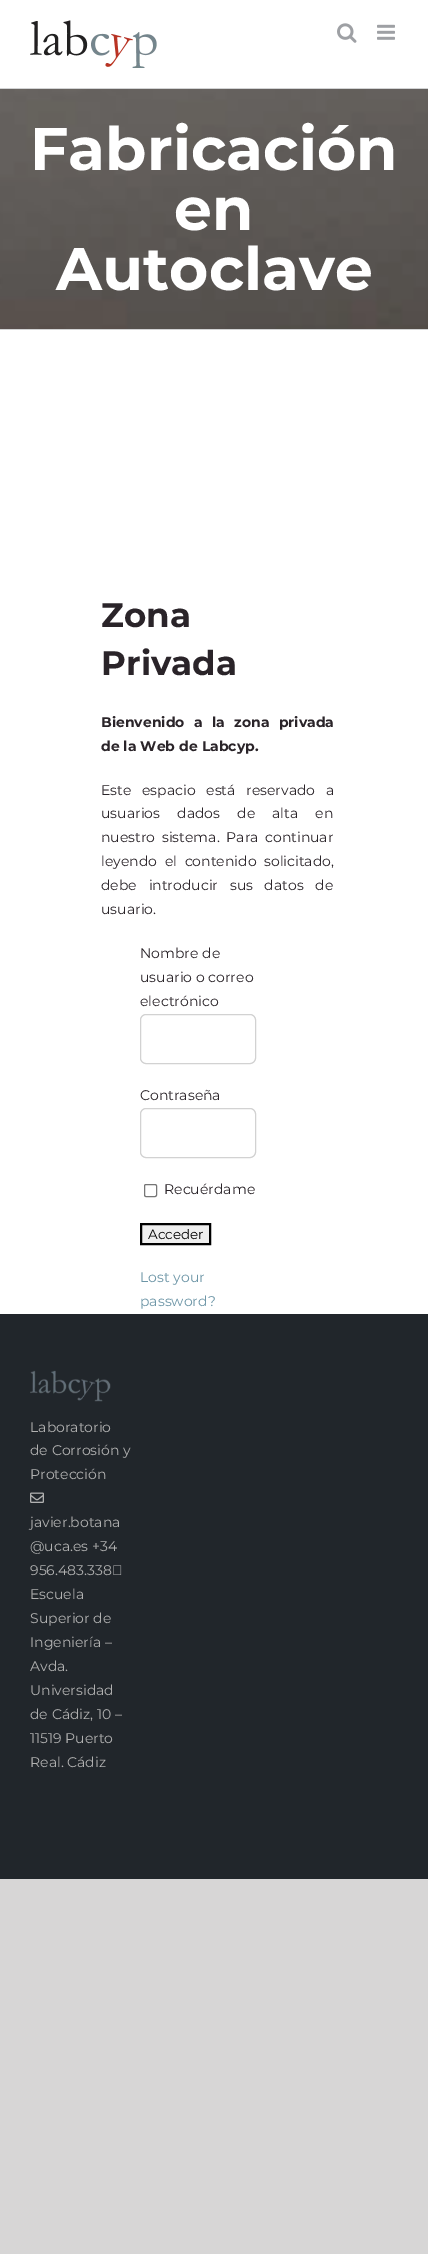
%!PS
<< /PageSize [428 2254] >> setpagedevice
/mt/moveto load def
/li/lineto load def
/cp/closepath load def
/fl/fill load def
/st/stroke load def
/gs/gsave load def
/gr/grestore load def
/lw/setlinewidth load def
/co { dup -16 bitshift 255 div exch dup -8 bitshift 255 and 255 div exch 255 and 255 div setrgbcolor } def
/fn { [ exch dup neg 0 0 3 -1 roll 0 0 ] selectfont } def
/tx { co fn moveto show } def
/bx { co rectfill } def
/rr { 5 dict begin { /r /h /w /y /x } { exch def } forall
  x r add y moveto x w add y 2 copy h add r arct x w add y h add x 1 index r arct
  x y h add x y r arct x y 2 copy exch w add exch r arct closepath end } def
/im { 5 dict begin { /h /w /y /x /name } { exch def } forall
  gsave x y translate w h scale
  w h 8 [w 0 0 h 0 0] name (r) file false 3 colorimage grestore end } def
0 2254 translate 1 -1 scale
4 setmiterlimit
0 0 428 2254 16#D7D6D6 bx
0 0 428 1314 16#FFFFFF bx
(media/1.raw) 30 20 127 48 im
(media/2.raw) 337 23 20 20 im
(media/3.raw) 377 24 18 16 im
(media/4.raw) 0 89 428 240 im
0 88 428 1 16#D2D3D4 bx
0 329 428 1 16#D2D3D4 bx
16#D2D2D2 co
140.5 1014.5 115 49 5.5 rr st
140.5 1108.5 115 49 5.5 rr st
16#767676 co
144.5 1184.5 12 12 1.5 rr st
16#EFEFEF co
141 1224 mt 210 1224 li 210 1244 li 141 1244 li cp gs fl gr
16#000000 co
2 lw
st
0 1314 428 565 16#21262B bx
(media/5.raw) 30 1370 81 32 im
(media/6.raw) 30 1492 14 11 im
(media/7.raw) 113 1565 9 10 im
(Fabricación) 30 170 /Montserrat-Bold 60 16#FFFFFF tx
(en) 174 230 /Montserrat-Bold 60 16#FFFFFF tx
(Autoclave) 56 290 /Montserrat-Bold 60 16#FFFFFF tx
(Zona) 101 627 /Montserrat-Bold 34 16#2A2429 tx
(Privada) 101 675 /Montserrat-Bold 34 16#2A2429 tx
/Montserrat-Bold 14 fn
101 727 mt 5.5 0 32 (Bienvenido a la zona privada) widthshow
(de la Web de Labcyp.) 101 751 /Montserrat-Bold 14 16#2A2429 tx
/Montserrat-Regular 14 fn
101 795 mt 7 0 32 (Este espacio está reservado a) widthshow
101 818 mt 13.5 0 32 (usuarios dados de alta en) widthshow
101 842 mt 3 0 32 (nuestro sistema. Para continuar) widthshow
101 866 mt 4 0 32 (leyendo el contenido solicitado,) widthshow
101 890 mt 8 0 32 (debe introducir sus datos de) widthshow
(usuario.) 101 914 /Montserrat-Regular 14 16#2A2429 tx
(Nombre de) 140 958 /Montserrat-Regular 14 16#2A2429 tx
(usuario o correo) 140 982 /Montserrat-Regular 14 16#2A2429 tx
(electrónico) 140 1006 /Montserrat-Regular 14 16#2A2429 tx
(Contraseña) 140 1100 /Montserrat-Regular 14 16#2A2429 tx
(Recuérdame) 164 1194 /Montserrat-Regular 14 16#2A2429 tx
(Acceder) 148 1239 /Montserrat-Regular 13.5 16#000000 tx
(Lost your) 140 1282 /Montserrat-Regular 14 16#6D96A7 tx
(password?) 140 1306 /Montserrat-Regular 14 16#6D96A7 tx
(Laboratorio) 30 1432 /Montserrat-Regular 14 16#B1B1B1 tx
(de Corrosión y) 30 1455 /Montserrat-Regular 14 16#B1B1B1 tx
(Protección) 30 1479 /Montserrat-Regular 14 16#B1B1B1 tx
(javier.botana) 30 1527 /Montserrat-Regular 14 16#B1B1B1 tx
(@uca.es +34) 30 1551 /Montserrat-Regular 14 16#B1B1B1 tx
(956.483.338) 30 1575 /Montserrat-Regular 14 16#B1B1B1 tx
(Escuela) 30 1599 /Montserrat-Regular 14 16#B1B1B1 tx
(Superior de) 30 1623 /Montserrat-Regular 14 16#B1B1B1 tx
(Ingeniería –) 30 1647 /Montserrat-Regular 14 16#B1B1B1 tx
(Avda.) 30 1671 /Montserrat-Regular 14 16#B1B1B1 tx
(Universidad) 30 1695 /Montserrat-Regular 14 16#B1B1B1 tx
(de Cádiz, 10 –) 30 1719 /Montserrat-Regular 14 16#B1B1B1 tx
(11519 Puerto) 30 1743 /Montserrat-Regular 14 16#B1B1B1 tx
(Real. Cádiz) 30 1767 /Montserrat-Regular 14 16#B1B1B1 tx
showpage
